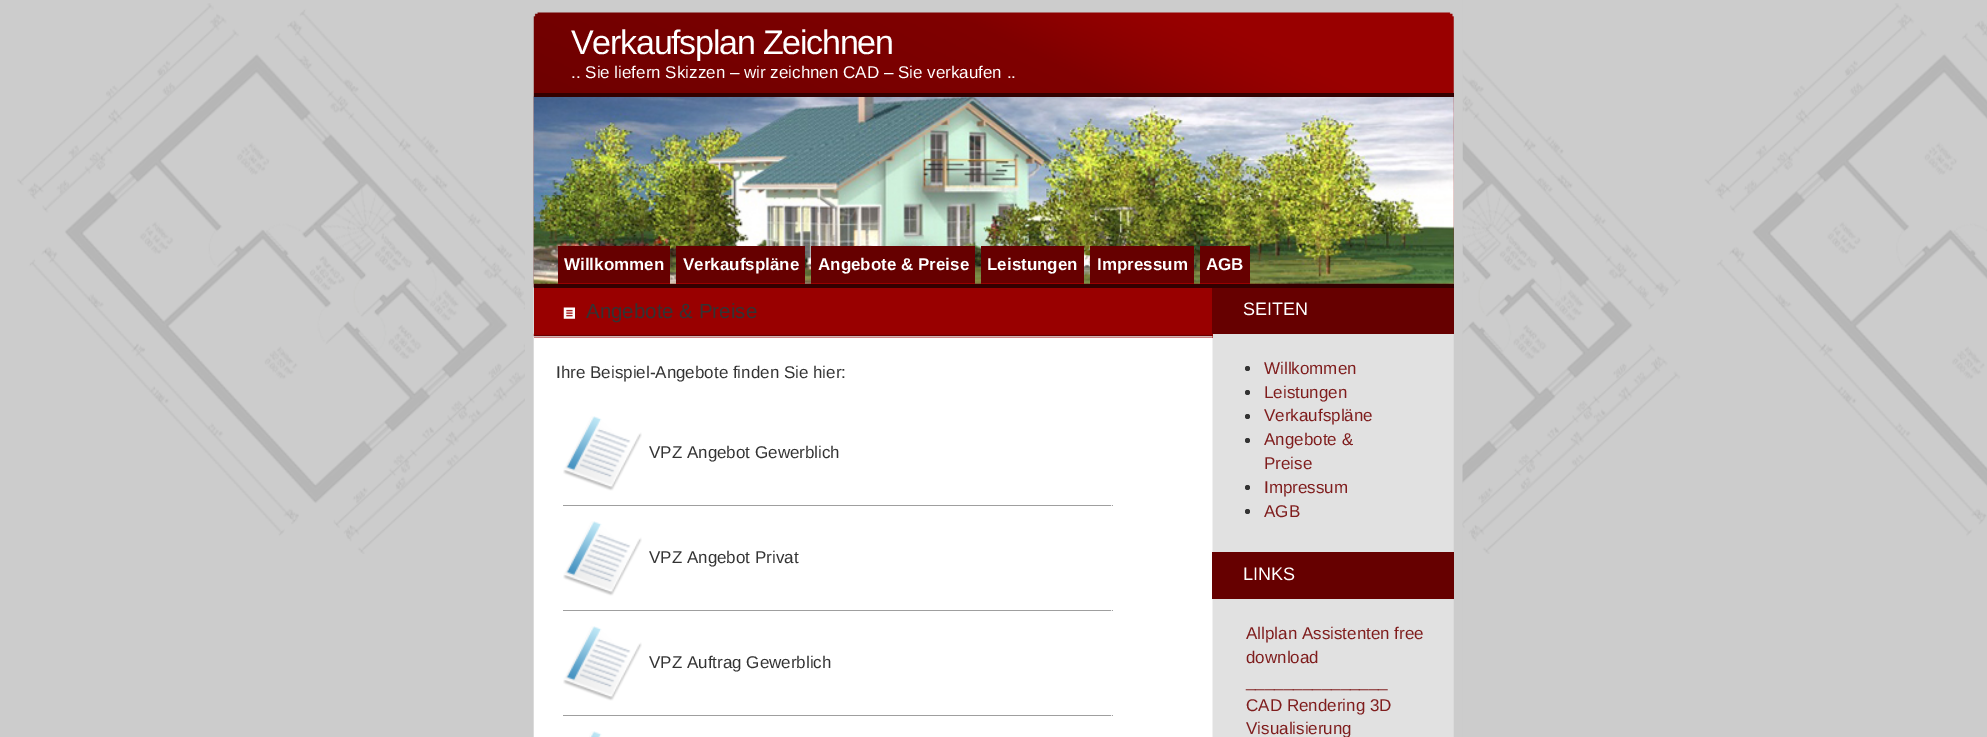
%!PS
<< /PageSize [1987 737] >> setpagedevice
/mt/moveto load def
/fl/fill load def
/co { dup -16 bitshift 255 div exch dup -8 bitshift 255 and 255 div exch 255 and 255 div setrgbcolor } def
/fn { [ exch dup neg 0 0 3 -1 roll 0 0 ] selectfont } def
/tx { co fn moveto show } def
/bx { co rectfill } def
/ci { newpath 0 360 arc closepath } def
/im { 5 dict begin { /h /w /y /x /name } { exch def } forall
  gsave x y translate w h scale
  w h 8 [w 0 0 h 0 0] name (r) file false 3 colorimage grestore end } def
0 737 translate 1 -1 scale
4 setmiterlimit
0 0 1987 737 16#CCCCCC bx
(media/1.raw) 17 3 1970 551 im
(media/2.raw) 525 0 938 737 im
(media/3.raw) 533 0 930 288 im
(media/4.raw) 533 96 921 188 im
534 93 920 4 16#330000 bx
534 284 920 4 16#330000 bx
558 283 112 1 16#990000 bx
558 246 112 37 16#660000 bx
676 283 129 1 16#990000 bx
676 246 129 37 16#660000 bx
811 283 164 1 16#990000 bx
811 246 164 37 16#660000 bx
981 283 103 1 16#990000 bx
981 246 103 37 16#660000 bx
1090 283 104 1 16#990000 bx
1090 246 104 37 16#660000 bx
1200 283 50 1 16#990000 bx
1200 246 50 37 16#660000 bx
534 288 679 50 16#990000 bx
(media/5.raw) 533 333 680 5 im
(media/6.raw) 563 307 12 12 im
(media/7.raw) 563 416 79 75 im
563 505 550 1 16#9F9F9F bx
1111 505 1 1 16#EEEEEE bx
(media/7.raw) 563 521 79 75 im
563 610 550 1 16#9F9F9F bx
1111 610 1 1 16#EEEEEE bx
(media/7.raw) 563 626 79 75 im
563 715 550 1 16#9F9F9F bx
1111 715 1 1 16#EEEEEE bx
(media/8.raw) 589 731 13 6 im
1212 288 242 46 16#660000 bx
16#333333 co
1247.5 368.5 2.5 ci fl
1247.5 392.5 2.5 ci fl
1247.5 416.5 2.5 ci fl
1247.5 440.5 2.5 ci fl
1247.5 487.5 2.5 ci fl
1247.5 511.5 2.5 ci fl
1212 552 242 47 16#660000 bx
/LiberationSans-Regular 34 fn
16#FFFFFF co
571 54 mt -1.25 0 (Verkaufsplan Zeichnen) ashow
(.. Sie liefern Skizzen – wir zeichnen CAD – Sie verkaufen ..) 571 78 /LiberationSans-Regular 17 16#FFFFFF tx
(Willkommen) 564 270 /LiberationSans-Bold 17 16#FFFFFF tx
(Verkaufspläne) 683 270 /LiberationSans-Bold 17 16#FFFFFF tx
(Angebote & Preise) 818 270 /LiberationSans-Bold 17 16#FFFFFF tx
(Leistungen) 987 270 /LiberationSans-Bold 17 16#FFFFFF tx
(Impressum) 1097 270 /LiberationSans-Bold 17 16#FFFFFF tx
(AGB) 1206 270 /LiberationSans-Bold 17 16#FFFFFF tx
(Angebote & Preise) 586 318 /LiberationSans-Regular 20.5 16#333333 tx
(Ihre Beispiel-Angebote finden Sie hier:) 556 378 /LiberationSans-Regular 17 16#333333 tx
(VPZ Angebot Gewerblich) 649 458 /LiberationSans-Regular 17 16#333333 tx
(VPZ Angebot Privat) 649 563 /LiberationSans-Regular 17 16#333333 tx
(VPZ Auftrag Gewerblich) 649 668 /LiberationSans-Regular 17 16#333333 tx
(SEITEN) 1243 315 /LiberationSans-Regular 18 16#FFFFFF tx
(Willkommen) 1264 374 /LiberationSans-Regular 17 16#7F1D1D tx
(Leistungen) 1264 398 /LiberationSans-Regular 17 16#7F1D1D tx
(Verkaufspläne) 1264 421 /LiberationSans-Regular 17 16#7F1D1D tx
(Angebote &) 1264 445 /LiberationSans-Regular 17 16#7F1D1D tx
(Preise) 1264 469 /LiberationSans-Regular 17 16#7F1D1D tx
(Impressum) 1264 493 /LiberationSans-Regular 17 16#7F1D1D tx
(AGB) 1264 517 /LiberationSans-Regular 17 16#7F1D1D tx
(LINKS) 1243 580 /LiberationSans-Regular 18 16#FFFFFF tx
(Allplan Assistenten free) 1246 639 /LiberationSans-Regular 17 16#7F1D1D tx
(download) 1246 663 /LiberationSans-Regular 17 16#7F1D1D tx
(_______________) 1246 687 /LiberationSans-Regular 17 16#7F1D1D tx
(CAD Rendering 3D) 1246 711 /LiberationSans-Regular 17 16#7F1D1D tx
(Visualisierung) 1246 734 /LiberationSans-Regular 17 16#7F1D1D tx
showpage
